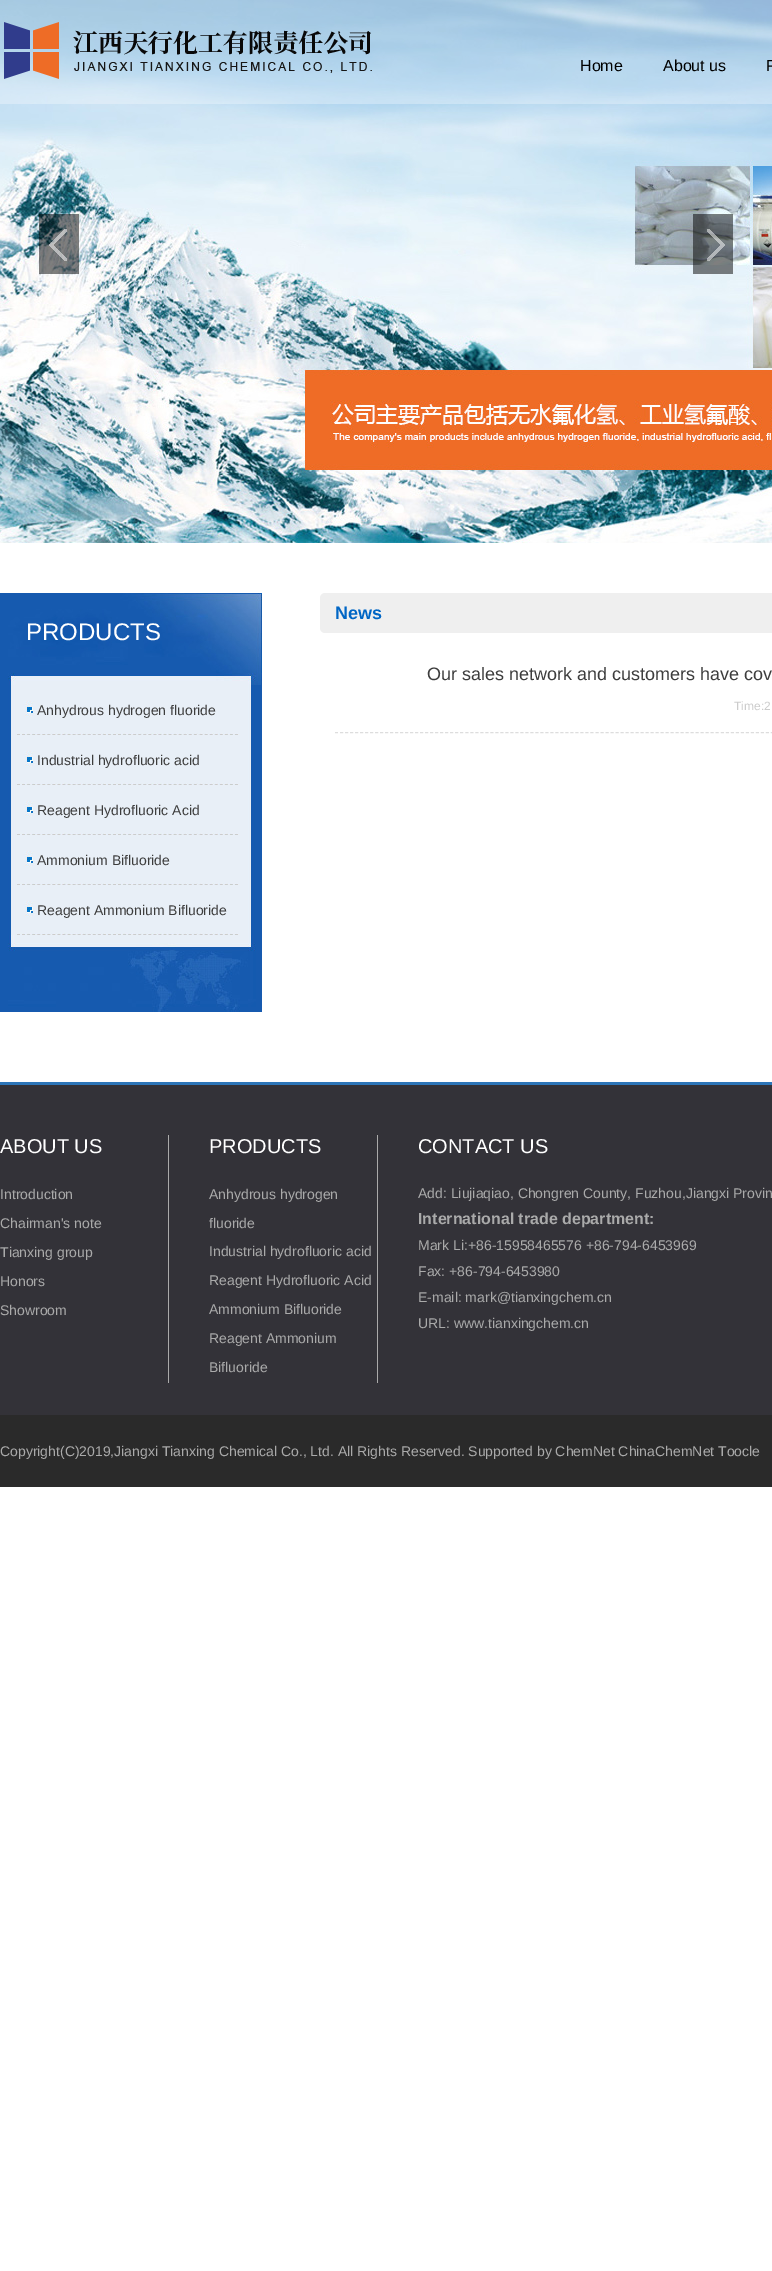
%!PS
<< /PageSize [772 2271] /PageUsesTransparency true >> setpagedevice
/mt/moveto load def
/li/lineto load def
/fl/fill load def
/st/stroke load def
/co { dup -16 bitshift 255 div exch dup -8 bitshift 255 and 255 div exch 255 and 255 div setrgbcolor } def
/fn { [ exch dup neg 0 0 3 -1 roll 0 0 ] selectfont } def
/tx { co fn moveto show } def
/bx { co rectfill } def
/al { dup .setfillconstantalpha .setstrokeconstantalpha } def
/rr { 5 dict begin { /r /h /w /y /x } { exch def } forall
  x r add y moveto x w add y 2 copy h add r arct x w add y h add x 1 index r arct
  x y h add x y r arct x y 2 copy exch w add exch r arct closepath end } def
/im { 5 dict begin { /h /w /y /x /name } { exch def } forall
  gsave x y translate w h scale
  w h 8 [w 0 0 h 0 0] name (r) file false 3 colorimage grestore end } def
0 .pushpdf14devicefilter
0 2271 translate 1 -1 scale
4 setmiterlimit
0 0 772 2271 16#FFFFFF bx
(media/1.raw) 0 0 772 543 im
0.3 al
0 0 772 104 16#FFFFFF bx
1 al
(media/2.raw) 4 22 368 57 im
0.5 al
39 214 40 60 16#000000 bx
1 al
(media/3.raw) 49 229 18 32 im
0.5 al
693 214 40 60 16#000000 bx
1 al
(media/4.raw) 707 229 18 32 im
(media/5.raw) 366 502 14 14 im
(media/6.raw) 394 504 10 9 im
(media/7.raw) 0 593 262 419 im
(media/8.raw) 8 593 254 92 im
(media/9.raw) 17 701 222 34 im
(media/9.raw) 17 751 222 34 im
(media/9.raw) 17 801 222 34 im
(media/9.raw) 17 851 222 34 im
(media/9.raw) 17 901 222 34 im
(media/10.raw) 8 935 248 77 im
16#EFEFEF co
320 593 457 40 5 rr fl
16#DDDDDD co
[3 2.01] 0 setdash
335 732.5 mt 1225 732.5 li st
0 1085 772 330 16#333238 bx
0 1082 772 3 16#2C75B8 bx
168 1135 1 248 16#AAAAAA bx
377 1135 1 248 16#AAAAAA bx
0 1415 772 72 16#2A2A2A bx
(Home) 580 71 /LiberationSans-Regular 16 16#000000 tx
(About us) 663 71 /LiberationSans-Regular 16 16#000000 tx
(P) 766 71 /LiberationSans-Regular 16 16#000000 tx
(PRODUCTS) 26 640 /LiberationSans-Regular 24 16#FFFFFF tx
(Anhydrous hydrogen fluoride) 37 715 /LiberationSans-Regular 14 16#3D3D3D tx
(Industrial hydrofluoric acid) 37 765 /LiberationSans-Regular 14 16#3D3D3D tx
(Reagent Hydrofluoric Acid) 37 815 /LiberationSans-Regular 14 16#3D3D3D tx
(Ammonium Bifluoride) 37 865 /LiberationSans-Regular 14 16#3D3D3D tx
(Reagent Ammonium Bifluoride) 37 915 /LiberationSans-Regular 14 16#3D3D3D tx
(News) 335 619 /LiberationSans-Bold 18 16#0066C5 tx
(Our sales network and customers have cov) 427 680 /LiberationSans-Regular 18 16#3D3D3D tx
(Time:2) 734 710 /LiberationSans-Regular 12 16#CCCCCC tx
(ABOUT US) 0 1153 /LiberationSans-Regular 20 16#FFFFFF tx
(Introduction) 0 1199 /LiberationSans-Regular 14 16#AAAAAA tx
(Chairman's note) 0 1228 /LiberationSans-Regular 14 16#AAAAAA tx
(Tianxing group) 0 1257 /LiberationSans-Regular 14 16#AAAAAA tx
(Honors) 0 1286 /LiberationSans-Regular 14 16#AAAAAA tx
(Showroom) 0 1315 /LiberationSans-Regular 14 16#AAAAAA tx
(PRODUCTS) 209 1153 /LiberationSans-Regular 20 16#FFFFFF tx
(Anhydrous hydrogen) 209 1199 /LiberationSans-Regular 14 16#AAAAAA tx
(fluoride) 209 1228 /LiberationSans-Regular 14 16#AAAAAA tx
(Industrial hydrofluoric acid) 209 1256 /LiberationSans-Regular 14 16#AAAAAA tx
(Reagent Hydrofluoric Acid) 209 1285 /LiberationSans-Regular 14 16#AAAAAA tx
(Ammonium Bifluoride) 209 1314 /LiberationSans-Regular 14 16#AAAAAA tx
(Reagent Ammonium) 209 1343 /LiberationSans-Regular 14 16#AAAAAA tx
(Bifluoride) 209 1372 /LiberationSans-Regular 14 16#AAAAAA tx
(CONTACT US) 418 1153 /LiberationSans-Regular 20 16#FFFFFF tx
(Add: Liujiaqiao, Chongren County, Fuzhou,Jiangxi Provin) 418 1198 /LiberationSans-Regular 14 16#AAAAAA tx
(International trade department:) 418 1224 /LiberationSans-Bold 16 16#AAAAAA tx
(Mark Li:+86-15958465576 +86-794-6453969) 418 1250 /LiberationSans-Regular 14 16#AAAAAA tx
(Fax: +86-794-6453980) 418 1276 /LiberationSans-Regular 14 16#AAAAAA tx
(E-mail: mark@tianxingchem.cn) 418 1302 /LiberationSans-Regular 14 16#AAAAAA tx
(URL: www.tianxingchem.cn) 418 1328 /LiberationSans-Regular 14 16#AAAAAA tx
(Copyright\(C\)2019,Jiangxi Tianxing Chemical Co., Ltd. All Rights Reserved. Supported by ChemNet ChinaChemNet Toocle) 0 1456 /LiberationSans-Regular 14 16#AAAAAA tx
.poppdf14devicefilter showpage
